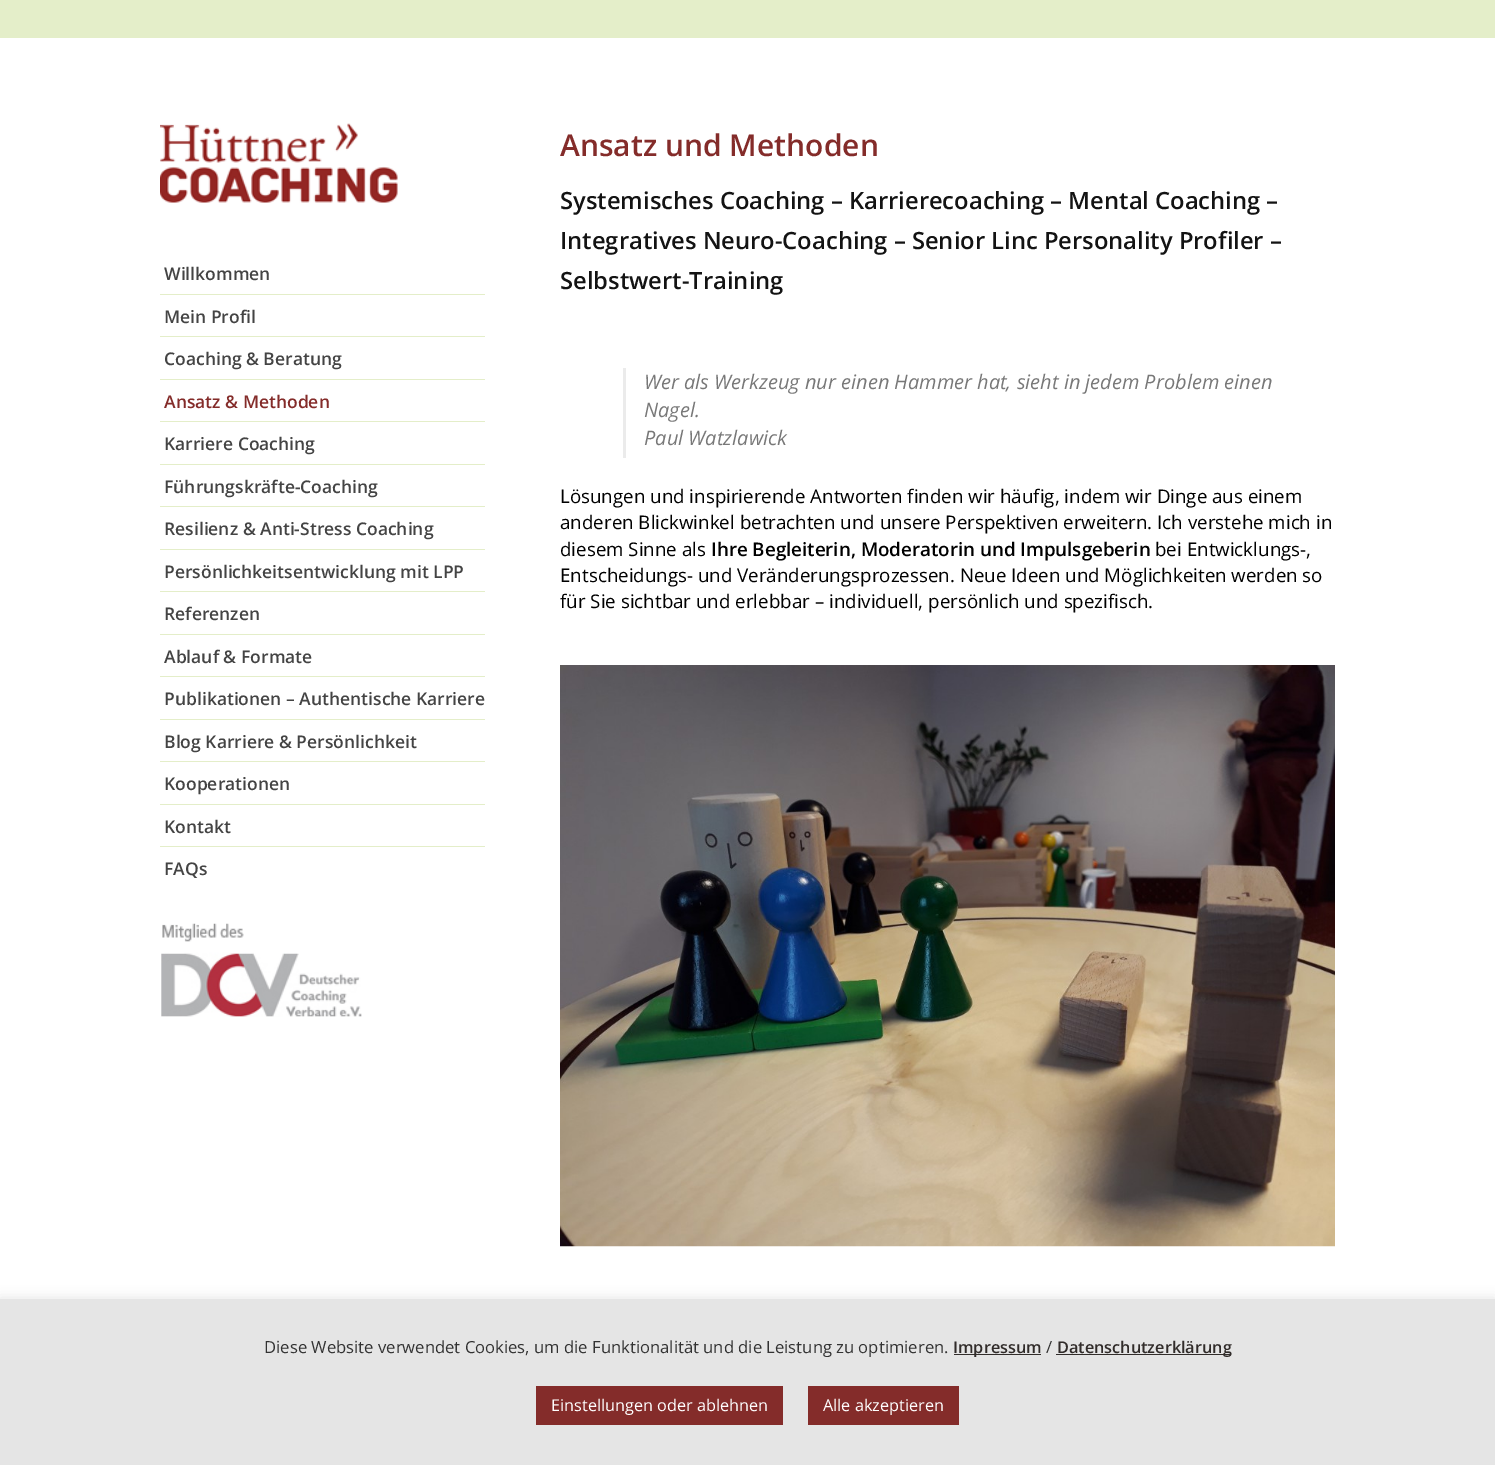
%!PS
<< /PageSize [1495 1465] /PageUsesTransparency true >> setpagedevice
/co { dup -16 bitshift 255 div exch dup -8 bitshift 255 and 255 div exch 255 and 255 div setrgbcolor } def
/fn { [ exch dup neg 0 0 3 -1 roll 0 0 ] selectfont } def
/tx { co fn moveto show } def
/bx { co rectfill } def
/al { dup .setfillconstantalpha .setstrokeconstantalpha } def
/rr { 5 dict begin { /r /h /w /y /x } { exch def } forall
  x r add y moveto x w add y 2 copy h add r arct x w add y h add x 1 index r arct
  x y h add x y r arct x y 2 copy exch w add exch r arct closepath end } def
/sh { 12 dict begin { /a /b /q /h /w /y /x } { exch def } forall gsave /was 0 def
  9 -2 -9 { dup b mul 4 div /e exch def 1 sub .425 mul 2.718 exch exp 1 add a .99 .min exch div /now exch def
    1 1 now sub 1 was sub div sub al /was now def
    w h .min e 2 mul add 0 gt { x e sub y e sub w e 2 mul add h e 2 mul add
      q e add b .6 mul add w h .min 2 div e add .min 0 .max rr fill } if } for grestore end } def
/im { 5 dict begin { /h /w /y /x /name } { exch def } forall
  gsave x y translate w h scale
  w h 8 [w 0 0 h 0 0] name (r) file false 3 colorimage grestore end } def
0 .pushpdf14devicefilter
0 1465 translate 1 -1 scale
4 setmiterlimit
0 0 1495 1465 16#FFFFFF bx
0 0 1495 38 16#E4EEC9 bx
(media/1.raw) 160 123 238 80 im
160 294 325 1 16#E4EEC9 bx
160 336 325 1 16#E4EEC9 bx
160 379 325 1 16#E4EEC9 bx
160 421 325 1 16#E4EEC9 bx
160 464 325 1 16#E4EEC9 bx
160 506 325 1 16#E4EEC9 bx
160 549 325 1 16#E4EEC9 bx
160 591 325 1 16#E4EEC9 bx
160 634 325 1 16#E4EEC9 bx
160 676 325 1 16#E4EEC9 bx
160 719 325 1 16#E4EEC9 bx
160 761 325 1 16#E4EEC9 bx
160 804 325 1 16#E4EEC9 bx
160 846 325 1 16#E4EEC9 bx
(media/2.raw) 161 923 201 94 im
623 368 3 90 16#EBEBEB bx
(media/3.raw) 560 665 775 582 im
16#ACABAB co
0 1298 1495 166 0 6 .3 sh
0 1299 1495 166 16#E5E5E5 bx
954 1354 87 1 16#312C2A bx
1056 1354 175 1 16#312C2A bx
536 1386 247 39 16#842C2A bx
808 1386 151 39 16#842C2A bx
(Willkommen) 164 280 /OpenSans-SemiBold 17.5 16#444444 tx
(Mein Profil) 164 323 /OpenSans-SemiBold 17.5 16#444444 tx
(Coaching & Beratung) 164 365 /OpenSans-SemiBold 17.5 16#444444 tx
(Ansatz & Methoden) 164 408 /OpenSans-SemiBold 17.5 16#842C2A tx
(Karriere Coaching) 164 450 /OpenSans-SemiBold 17.5 16#444444 tx
(Führungskräfte-Coaching) 164 493 /OpenSans-SemiBold 17.5 16#444444 tx
(Resilienz & Anti-Stress Coaching) 164 535 /OpenSans-SemiBold 17.5 16#444444 tx
(Persönlichkeitsentwicklung mit LPP) 164 578 /OpenSans-SemiBold 17.5 16#444444 tx
(Referenzen) 164 620 /OpenSans-SemiBold 17.5 16#444444 tx
(Ablauf & Formate) 164 663 /OpenSans-SemiBold 17.5 16#444444 tx
(Publikationen – Authentische Karriere) 164 705 /OpenSans-SemiBold 17.5 16#444444 tx
(Blog Karriere & Persönlichkeit) 164 748 /OpenSans-SemiBold 17.5 16#444444 tx
(Kooperationen) 164 790 /OpenSans-SemiBold 17.5 16#444444 tx
(Kontakt) 164 833 /OpenSans-SemiBold 17.5 16#444444 tx
(FAQs) 164 875 /OpenSans-SemiBold 17.5 16#444444 tx
(Ansatz und Methoden) 560 156 /OpenSans-SemiBold 30 16#842C2A tx
(Systemisches Coaching – Karrierecoaching – Mental Coaching –) 560 209 /OpenSans-SemiBold 23.75 16#131313 tx
(Integratives Neuro-Coaching – Senior Linc Personality Profiler –) 560 249 /OpenSans-SemiBold 23.75 16#131313 tx
(Selbstwert-Training) 560 289 /OpenSans-SemiBold 23.75 16#131313 tx
(Wer als Werkzeug nur einen Hammer hat, sieht in jedem Problem einen) 644 389 /OpenSans-Italic 20 16#787878 tx
(Nagel.) 644 417 /OpenSans-Italic 20 16#787878 tx
(Paul Watzlawick) 644 445 /OpenSans-Italic 20 16#787878 tx
(Lösungen und inspirierende Antworten finden wir häufig, indem wir Dinge aus einem) 560 503 /OpenSans-Regular 18.75 16#000000 tx
(anderen Blickwinkel betrachten und unsere Perspektiven erweitern. Ich verstehe mich in) 560 529 /OpenSans-Regular 18.75 16#000000 tx
(diesem Sinne als) 560 556 /OpenSans-Regular 18.75 16#000000 tx
(Ihre Begleiterin, Moderatorin und Impulsgeberin) 711 556 /OpenSans-SemiBold 18.75 16#000000 tx
(bei Entwicklungs-,) 1155 556 /OpenSans-Regular 18.75 16#000000 tx
(Entscheidungs- und Veränderungsprozessen. Neue Ideen und Möglichkeiten werden so) 560 582 /OpenSans-Regular 18.75 16#000000 tx
(für Sie sichtbar und erlebbar – individuell, persönlich und spezifisch.) 560 608 /OpenSans-Regular 18.75 16#000000 tx
(Diese Website verwendet Cookies, um die Funktionalität und die Leistung zu optimieren.) 264 1353 /OpenSans-Regular 16.65 16#333333 tx
(Impressum) 953 1353 /OpenSans-SemiBold 16.25 16#312C2A tx
(/) 1046 1353 /OpenSans-Regular 16.65 16#333333 tx
(Datenschutzerklärung) 1057 1353 /OpenSans-SemiBold 16.25 16#312C2A tx
(Einstellungen oder ablehnen) 551 1411 /OpenSans-Regular 16.25 16#FFFFFF tx
(Alle akzeptieren) 823 1411 /OpenSans-Regular 16.25 16#FFFFFF tx
.poppdf14devicefilter showpage
